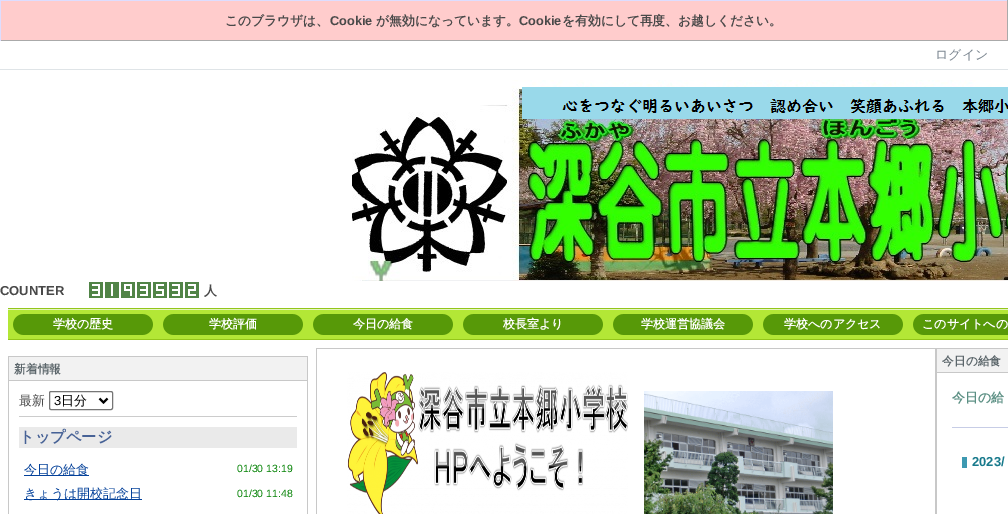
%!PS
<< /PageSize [1008 514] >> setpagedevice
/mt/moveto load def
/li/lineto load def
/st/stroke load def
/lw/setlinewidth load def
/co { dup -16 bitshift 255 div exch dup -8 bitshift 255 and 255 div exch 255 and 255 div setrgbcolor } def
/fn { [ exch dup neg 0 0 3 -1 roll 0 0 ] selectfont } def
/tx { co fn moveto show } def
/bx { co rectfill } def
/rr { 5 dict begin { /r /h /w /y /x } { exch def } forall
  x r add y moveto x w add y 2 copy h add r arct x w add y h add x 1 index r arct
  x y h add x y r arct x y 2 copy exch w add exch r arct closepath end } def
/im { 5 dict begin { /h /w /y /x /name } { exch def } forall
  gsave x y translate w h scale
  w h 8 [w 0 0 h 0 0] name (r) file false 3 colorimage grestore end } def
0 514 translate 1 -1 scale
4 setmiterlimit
0 0 1008 514 16#FFCCCC bx
0 0 1008 1 16#DDDDFF bx
1007 0 1 41 16#AAAAAA bx
0 40 1008 1 16#AAAAAA bx
0 0 1 41 16#DDDDFF bx
0 41 1008 28 16#FFFFFF bx
0 69 1008 1 16#DFE4E7 bx
0 70 1008 278 16#FFFFFF bx
(media/1.raw) 352 80 656 201 im
(media/2.raw) 89 282 14 16 im
(media/3.raw) 105 282 14 16 im
(media/4.raw) 121 282 14 16 im
(media/2.raw) 137 282 14 16 im
(media/5.raw) 153 282 14 16 im
(media/2.raw) 169 282 14 16 im
(media/6.raw) 185 282 14 16 im
(media/7.raw) 8 308 1000 32 im
(media/8.raw) 13 314 140 21 im
(media/8.raw) 163 314 140 21 im
(media/8.raw) 313 314 140 21 im
(media/8.raw) 463 314 140 21 im
(media/8.raw) 613 314 140 21 im
(media/8.raw) 763 314 140 21 im
(media/9.raw) 913 314 95 21 im
0 348 316 166 16#FFFFFF bx
8 356 300 1 16#C8C8C8 bx
307 356 1 158 16#C8C8C8 bx
8 356 1 158 16#C8C8C8 bx
9 357 298 23 16#F2F2F2 bx
8 380 300 1 16#C8C8C8 bx
16#767676 co
49.5 391.5 63 18 1.5 rr st
16#000000 co
2 lw
99.5 398.5 mt 103.5 402.5 li 107.5 398.5 li st
19 416 278 1 16#CCCCCC bx
19 427 278 21 16#EAEAEA bx
24 475 65 1 16#04419A bx
24 499 118 1 16#04419A bx
317 349 691 165 16#FFFFFF bx
316 348 692 1 16#C8C8C8 bx
935 348 2 166 16#C8C8C8 bx
316 348 1 166 16#C8C8C8 bx
(media/10.raw) 347 372 281 142 im
(media/11.raw) 644 391 189 123 im
937 349 71 23 16#F2F2F2 bx
936 372 72 1 16#C8C8C8 bx
962 457 5 11 16#3D99B1 bx
952 427 56 1 16#C7CDE6 bx
(このブラウザは、) 225 25 /WenQuanYiZenHei-Bold 12.75 16#494949 tx
(Cookie) 330 25 /LiberationSans-Bold 12.75 16#494949 tx
(が無効になっています。) 376 25 /WenQuanYiZenHei-Bold 12.75 16#494949 tx
(Cookie) 519 25 /LiberationSans-Bold 12.75 16#494949 tx
(を有効にして再度、お越しください。) 562 25 /WenQuanYiZenHei-Bold 12.75 16#494949 tx
(ログイン) 935 59 /WenQuanYiZenHei-Medium 13 16#7A858F tx
(COUNTER) 0 295 /LiberationSans-Bold 13 16#494949 tx
(人) 204 295 /WenQuanYiZenHei-Bold 13 16#494949 tx
(学校の歴史) 53 328 /WenQuanYiZenHei-Bold 12 16#FFFFFF tx
(学校評価) 209 328 /WenQuanYiZenHei-Bold 12 16#FFFFFF tx
(今日の給食) 353 328 /WenQuanYiZenHei-Bold 12 16#FFFFFF tx
(校長室より) 503 328 /WenQuanYiZenHei-Bold 12 16#FFFFFF tx
(学校運営協議会) 641 328 /WenQuanYiZenHei-Bold 12 16#FFFFFF tx
(学校へのアクセス) 784 328 /WenQuanYiZenHei-Bold 12 16#FFFFFF tx
(このサイトへの) 922 328 /WenQuanYiZenHei-Bold 12 16#FFFFFF tx
(新着情報) 14 373 /WenQuanYiZenHei-Bold 11.75 16#5C666B tx
(最新) 19 405 /WenQuanYiZenHei-Medium 13 16#494949 tx
(3) 54 405 /LiberationSans-Regular 13 16#000000 tx
(日分) 61 405 /WenQuanYiZenHei-Medium 13 16#000000 tx
(トップページ) 19 442 /WenQuanYiZenHei-Bold 15.25 16#476296 tx
(今日の給食) 24 474 /WenQuanYiZenHei-Medium 13 16#04419A tx
(01/30 13:19) 237 472 /LiberationSans-Regular 10.5 16#008000 tx
(きょうは開校記念日) 24 498 /WenQuanYiZenHei-Medium 13 16#04419A tx
(01/30 11:48) 237 497 /LiberationSans-Regular 10.5 16#008000 tx
(今日の給食) 942 365 /WenQuanYiZenHei-Bold 11.75 16#5C666B tx
(今日の給) 952 402 /WenQuanYiZenHei-Bold 13 16#5C9084 tx
(2023/) 972 466 /LiberationSans-Bold 13 16#187A8C tx
showpage
